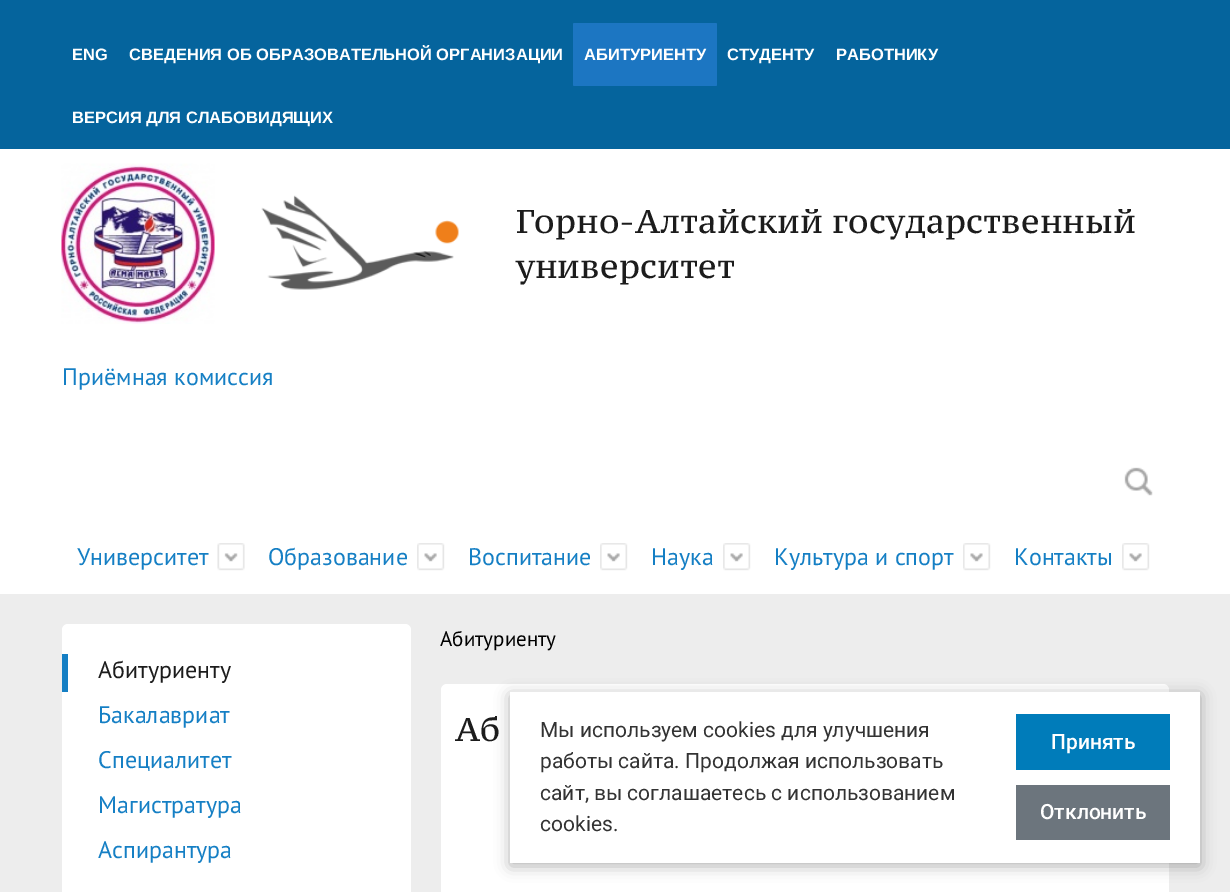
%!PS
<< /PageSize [1230 892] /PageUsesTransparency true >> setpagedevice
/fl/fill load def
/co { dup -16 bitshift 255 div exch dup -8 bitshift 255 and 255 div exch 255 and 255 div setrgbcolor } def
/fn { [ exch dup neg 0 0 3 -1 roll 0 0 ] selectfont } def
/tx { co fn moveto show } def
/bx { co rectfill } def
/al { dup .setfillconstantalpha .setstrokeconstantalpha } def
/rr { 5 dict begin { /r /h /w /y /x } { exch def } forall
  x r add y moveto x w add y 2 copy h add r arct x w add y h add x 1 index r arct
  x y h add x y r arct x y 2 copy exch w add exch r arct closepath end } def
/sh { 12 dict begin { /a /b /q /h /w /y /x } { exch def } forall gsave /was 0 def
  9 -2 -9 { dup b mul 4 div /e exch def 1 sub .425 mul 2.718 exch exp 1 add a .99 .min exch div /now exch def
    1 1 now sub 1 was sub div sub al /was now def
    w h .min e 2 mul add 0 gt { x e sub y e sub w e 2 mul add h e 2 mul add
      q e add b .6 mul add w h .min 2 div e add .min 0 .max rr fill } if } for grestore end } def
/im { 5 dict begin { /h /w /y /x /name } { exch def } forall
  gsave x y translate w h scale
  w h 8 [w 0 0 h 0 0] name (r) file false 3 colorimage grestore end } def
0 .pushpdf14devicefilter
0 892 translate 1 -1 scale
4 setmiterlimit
0 0 1230 892 16#EDEDED bx
0 0 1230 149 16#05649D bx
16#1C76C2 co
573 23 144 63 1.5 rr fl
0 149 1230 445 16#FFFFFF bx
(media/1.raw) 61 163 154 161 im
(media/2.raw) 261 195 198 95 im
(media/3.raw) 1124 467 29 29 im
(media/4.raw) 217 543 28 28 im
(media/5.raw) 417 543 28 28 im
(media/5.raw) 600 543 28 28 im
(media/5.raw) 723 543 28 28 im
(media/6.raw) 963 543 28 28 im
(media/5.raw) 1122 543 28 28 im
62 624 349 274 6 rr fl
62 654 6 38 16#157FC4 bx
16#FFFFFF co
441 684 728 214 6 rr fl
16#000000 co
510 695 690 171 0 7.5 .3 sh
510 692 690 171 16#FFFFFF bx
1016 714 154 56 16#007CBA bx
1016 785 154 55 16#6C757D bx
(ENG) 72 60 /LiberationSans-Bold 16.5 16#FFFFFF tx
(СВЕДЕНИЯ ОБ ОБРАЗОВАТЕЛЬНОЙ ОРГАНИЗАЦИИ) 129 60 /LiberationSans-Bold 16.5 16#FFFFFF tx
(АБИТУРИЕНТУ) 584 60 /LiberationSans-Bold 16.5 16#FFFFFF tx
(СТУДЕНТУ) 727 60 /LiberationSans-Bold 16.5 16#FFFFFF tx
(РАБОТНИКУ) 836 60 /LiberationSans-Bold 16.5 16#FFFFFF tx
(ВЕРСИЯ ДЛЯ СЛАБОВИДЯЩИХ) 72 123 /LiberationSans-Bold 16.5 16#FFFFFF tx
(Горно-Алтайский государственный) 516 233 /PTSerifCaption-Regular 33 16#1C1C1C tx
(университет) 516 278 /PTSerifCaption-Regular 33 16#1C1C1C tx
(Приёмная комиссия) 62 385 /PTSans-Regular 24 16#157FC4 tx
(Университет) 77 565 /PTSans-Regular 24 16#157FC4 tx
(Образование) 268 565 /PTSans-Regular 24 16#157FC4 tx
(Воспитание) 468 565 /PTSans-Regular 24 16#157FC4 tx
(Наука) 651 565 /PTSans-Regular 24 16#157FC4 tx
(Культура и спорт) 774 565 /PTSans-Regular 24 16#157FC4 tx
(Контакты) 1014 565 /PTSans-Regular 24 16#157FC4 tx
(Абитуриенту) 98 678 /PTSans-Regular 24 16#1C1C1C tx
(Бакалавриат) 98 723 /PTSans-Regular 24 16#157FC4 tx
(Специалитет) 98 768 /PTSans-Regular 24 16#157FC4 tx
(Магистратура) 98 813 /PTSans-Regular 24 16#157FC4 tx
(Аспирантура) 98 858 /PTSans-Regular 24 16#157FC4 tx
(Абитуриенту) 440 646 /PTSans-Regular 21 16#000000 tx
(Аб) 455 741 /PTSerifCaption-Regular 33 16#1C1C1C tx
(Мы используем cookies для улучшения) 540 737 /Roboto-Regular 21 16#333333 tx
(работы сайта. Продолжая использовать) 540 768 /Roboto-Regular 21 16#333333 tx
(сайт, вы соглашаетесь с использованием) 540 800 /Roboto-Regular 21 16#333333 tx
(cookies.) 540 831 /Roboto-Regular 21 16#333333 tx
(Принять) 1051 749 /Roboto-Medium 21 16#FFFFFF tx
(Отклонить) 1040 819 /Roboto-Medium 21 16#FFFFFF tx
.poppdf14devicefilter showpage
